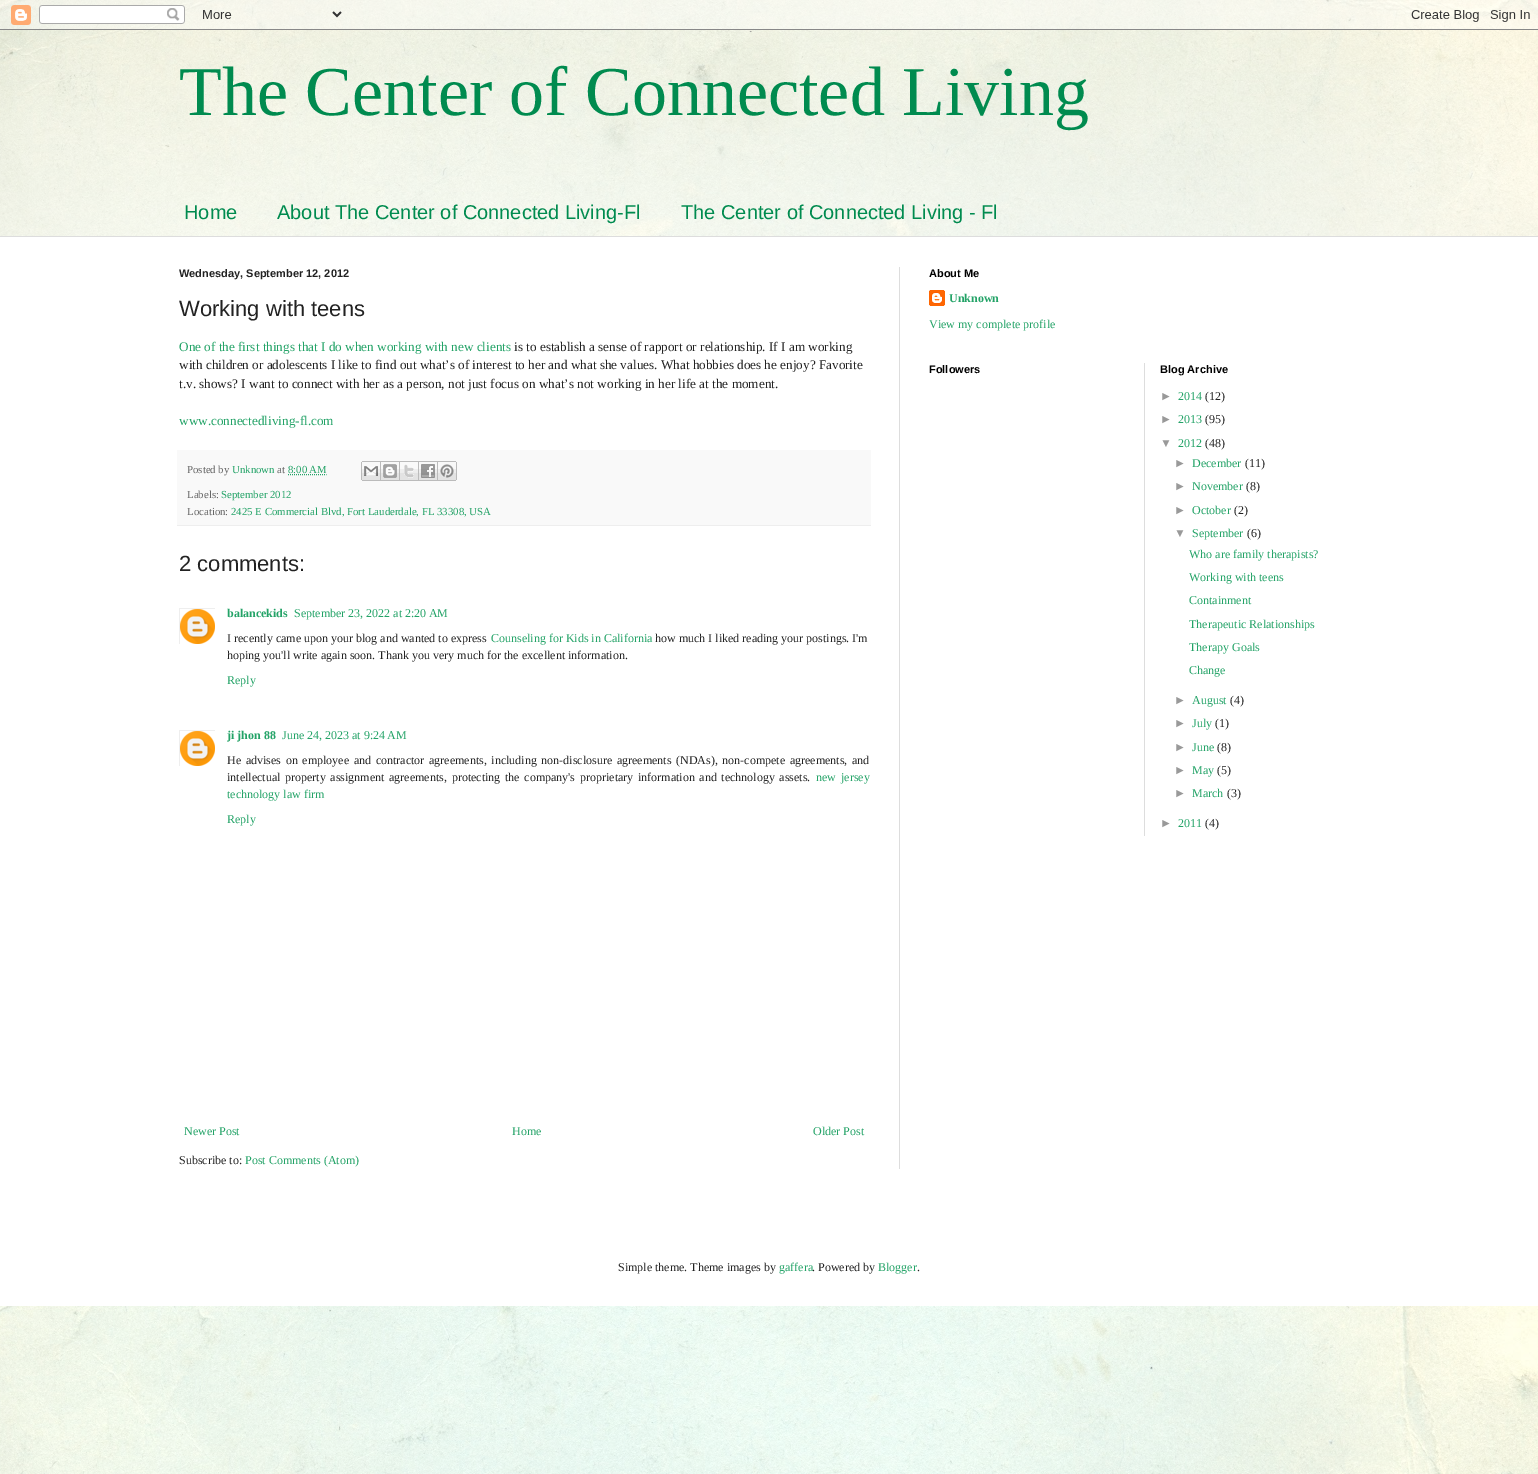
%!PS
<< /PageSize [1538 1474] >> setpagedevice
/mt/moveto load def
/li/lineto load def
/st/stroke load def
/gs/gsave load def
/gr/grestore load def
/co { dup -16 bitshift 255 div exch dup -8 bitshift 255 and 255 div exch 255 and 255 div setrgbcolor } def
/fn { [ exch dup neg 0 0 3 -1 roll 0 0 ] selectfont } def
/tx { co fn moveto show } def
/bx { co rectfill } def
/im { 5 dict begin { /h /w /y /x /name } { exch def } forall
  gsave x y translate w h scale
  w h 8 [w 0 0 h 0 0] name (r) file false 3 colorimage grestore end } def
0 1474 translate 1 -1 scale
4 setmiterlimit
0 0 1538 1474 16#FFFFFF bx
(media/1.raw) 0 0 1538 1474 im
(media/2.raw) 0 0 1538 236 im
(media/3.raw) 0 0 1538 30 im
0 237 1538 1069 16#FFFFFF bx
0 236 1538 1 16#DDDDDD bx
899 267 1 902 16#DDDDDD bx
177 450 694 75 16#F9F9F9 bx
177 525 694 1 16#EEEEEE bx
16#23A367 co
[1 1] 0 setdash
288 474.5 mt 326.5 474.5 li st
(media/4.raw) 361 461 20 20 im
(media/5.raw) 381 461 19 20 im
(media/6.raw) 400 461 19 20 im
(media/7.raw) 419 461 19 20 im
(media/8.raw) 438 461 19 20 im
gs
179 608 36 36 rectclip
16#EEEEEE co
[] 0 setdash
179.5 608.5 36 36 rectstroke
gr
(media/9.raw) 180 609 35 35 im
gs
179 730 36 36 rectclip
16#EEEEEE co
[] 0 setdash
179.5 730.5 36 36 rectstroke
gr
(media/9.raw) 180 731 35 35 im
(media/10.raw) 929 290 16 16 im
1144 363 1 473 16#DDDDDD bx
(The Center of Connected Living) 179 115 /LiberationSerif-Regular 70 16#008B4F tx
(Home) 184 219 /LiberationSans-Regular 20 16#008B4F tx
(About The Center of Connected Living-Fl) 277 219 /LiberationSans-Regular 20 16#008B4F tx
(The Center of Connected Living - Fl) 681 219 /LiberationSans-Regular 20 16#008B4F tx
(Wednesday, September 12, 2012) 179 277 /LiberationSans-Bold 11 16#222222 tx
(Working with teens) 179 316 /LiberationSans-Regular 22 16#222222 tx
(One of the first things that I do when working with new clients) 179 351 /LiberationSerif-Regular 13.2 16#23A367 tx
(is to establish a sense of rapport or relationship. If I am working) 514 351 /LiberationSerif-Regular 13.2 16#222222 tx
(with children or adolescents I like to find out what’s of interest to her and what she values. What hobbies does he enjoy? Favorite) 179 369 /LiberationSerif-Regular 13.2 16#222222 tx
(t.v. shows? I want to connect with her as a person, not just focus on what’s not working in her life at the moment.) 179 388 /LiberationSerif-Regular 13.2 16#222222 tx
(www.connectedliving-fl.com) 179 425 /LiberationSerif-Regular 13.2 16#23A367 tx
(Posted by) 187 473 /LiberationSerif-Regular 10.8 16#666666 tx
(Unknown) 232 473 /LiberationSerif-Regular 10.8 16#23A367 tx
(at) 277 473 /LiberationSerif-Regular 10.8 16#666666 tx
(8:00 AM) 288 473 /LiberationSerif-Regular 10.8 16#23A367 tx
(Labels:) 187 498 /LiberationSerif-Regular 10.8 16#666666 tx
(September 2012) 221 498 /LiberationSerif-Regular 10.8 16#23A367 tx
(Location:) 187 515 /LiberationSerif-Regular 10.8 16#666666 tx
(2425 E Commercial Blvd, Fort Lauderdale, FL 33308, USA) 231 515 /LiberationSerif-Regular 10.8 16#23A367 tx
(2 comments:) 179 571 /LiberationSans-Regular 22 16#222222 tx
(balancekids) 227 617 /LiberationSerif-Bold 12 16#23A367 tx
(September 23, 2022 at 2:20 AM) 294 617 /LiberationSerif-Regular 12 16#23A367 tx
(I recently came upon your blog and wanted to express) 227 642 /LiberationSerif-Regular 12 16#222222 tx
(Counseling for Kids in California) 491 642 /LiberationSerif-Regular 12 16#23A367 tx
(how much I liked reading your postings. I'm) 655 642 /LiberationSerif-Regular 12 16#222222 tx
(hoping you'll write again soon. Thank you very much for the excellent information.) 227 659 /LiberationSerif-Regular 12 16#222222 tx
(Reply) 227 684 /LiberationSerif-Regular 12 16#23A367 tx
(ji jhon 88) 227 739 /LiberationSerif-Bold 12 16#23A367 tx
(June 24, 2023 at 9:24 AM) 282 739 /LiberationSerif-Regular 12 16#23A367 tx
16#222222 co
227 764 mt 1.7 0 32 (He advises on employee and contractor agreements, including non-disclosure agreements \(NDAs\), non-compete agreements, and) widthshow
227 781 mt 1.75 0 32 (intellectual property assignment agreements, protecting the company's proprietary information and technology assets.) widthshow
16#23A367 co
816 781 mt 2 0 32 (new jersey) widthshow
(technology law firm) 227 798 /LiberationSerif-Regular 12 16#23A367 tx
(Reply) 227 823 /LiberationSerif-Regular 12 16#23A367 tx
(Newer Post) 184 1135 /LiberationSerif-Regular 12 16#23A367 tx
(Home) 512 1135 /LiberationSerif-Regular 12 16#23A367 tx
(Older Post) 813 1135 /LiberationSerif-Regular 12 16#23A367 tx
(Subscribe to:) 179 1164 /LiberationSerif-Regular 12 16#222222 tx
(Post Comments \(Atom\)) 245 1164 /LiberationSerif-Regular 12 16#23A367 tx
(About Me) 929 277 /LiberationSans-Bold 11 16#000000 tx
(Unknown) 949 302 /LiberationSerif-Bold 12 16#23A367 tx
(View my complete profile) 929 328 /LiberationSerif-Regular 12 16#23A367 tx
(Followers) 929 373 /LiberationSans-Bold 11 16#000000 tx
(Blog Archive) 1160 373 /LiberationSans-Bold 11 16#000000 tx
(►) 1160 400 /LiberationSans-Regular 12 16#999999 tx
(2014) 1178 400 /LiberationSerif-Regular 12 16#23A367 tx
(\(12\)) 1205 400 /LiberationSerif-Regular 12 16#222222 tx
(►) 1160 423 /LiberationSans-Regular 12 16#999999 tx
(2013) 1178 423 /LiberationSerif-Regular 12 16#23A367 tx
(\(95\)) 1205 423 /LiberationSerif-Regular 12 16#222222 tx
(▼) 1160 447 /LiberationSans-Regular 12 16#999999 tx
(2012) 1178 447 /LiberationSerif-Regular 12 16#23A367 tx
(\(48\)) 1205 447 /LiberationSerif-Regular 12 16#222222 tx
(►) 1174 467 /LiberationSans-Regular 12 16#999999 tx
(December) 1192 467 /LiberationSerif-Regular 12 16#23A367 tx
(\(11\)) 1245 467 /LiberationSerif-Regular 12 16#222222 tx
(►) 1174 490 /LiberationSans-Regular 12 16#999999 tx
(November) 1192 490 /LiberationSerif-Regular 12 16#23A367 tx
(\(8\)) 1246 490 /LiberationSerif-Regular 12 16#222222 tx
(►) 1174 514 /LiberationSans-Regular 12 16#999999 tx
(October) 1192 514 /LiberationSerif-Regular 12 16#23A367 tx
(\(2\)) 1234 514 /LiberationSerif-Regular 12 16#222222 tx
(▼) 1174 537 /LiberationSans-Regular 12 16#999999 tx
(September) 1192 537 /LiberationSerif-Regular 12 16#23A367 tx
(\(6\)) 1247 537 /LiberationSerif-Regular 12 16#222222 tx
(Who are family therapists?) 1189 558 /LiberationSerif-Regular 12 16#23A367 tx
(Working with teens) 1189 581 /LiberationSerif-Regular 12 16#23A367 tx
(Containment) 1189 604 /LiberationSerif-Regular 12 16#23A367 tx
(Therapeutic Relationships) 1189 628 /LiberationSerif-Regular 12 16#23A367 tx
(Therapy Goals) 1189 651 /LiberationSerif-Regular 12 16#23A367 tx
(Change) 1189 674 /LiberationSerif-Regular 12 16#23A367 tx
(►) 1174 704 /LiberationSans-Regular 12 16#999999 tx
(August) 1192 704 /LiberationSerif-Regular 12 16#23A367 tx
(\(4\)) 1230 704 /LiberationSerif-Regular 12 16#222222 tx
(►) 1174 727 /LiberationSans-Regular 12 16#999999 tx
(July) 1192 727 /LiberationSerif-Regular 12 16#23A367 tx
(\(1\)) 1215 727 /LiberationSerif-Regular 12 16#222222 tx
(►) 1174 751 /LiberationSans-Regular 12 16#999999 tx
(June) 1192 751 /LiberationSerif-Regular 12 16#23A367 tx
(\(8\)) 1217 751 /LiberationSerif-Regular 12 16#222222 tx
(►) 1174 774 /LiberationSans-Regular 12 16#999999 tx
(May) 1192 774 /LiberationSerif-Regular 12 16#23A367 tx
(\(5\)) 1217 774 /LiberationSerif-Regular 12 16#222222 tx
(►) 1174 797 /LiberationSans-Regular 12 16#999999 tx
(March) 1192 797 /LiberationSerif-Regular 12 16#23A367 tx
(\(3\)) 1227 797 /LiberationSerif-Regular 12 16#222222 tx
(►) 1160 827 /LiberationSans-Regular 12 16#999999 tx
(2011) 1178 827 /LiberationSerif-Regular 12 16#23A367 tx
(\(4\)) 1205 827 /LiberationSerif-Regular 12 16#222222 tx
(Simple theme. Theme images by) 618 1271 /LiberationSerif-Regular 12 16#222222 tx
(gaffera) 779 1271 /LiberationSerif-Regular 12 16#23A367 tx
(. Powered by) 812 1271 /LiberationSerif-Regular 12 16#222222 tx
(Blogger) 878 1271 /LiberationSerif-Regular 12 16#23A367 tx
(.) 917 1271 /LiberationSerif-Regular 12 16#222222 tx
showpage
